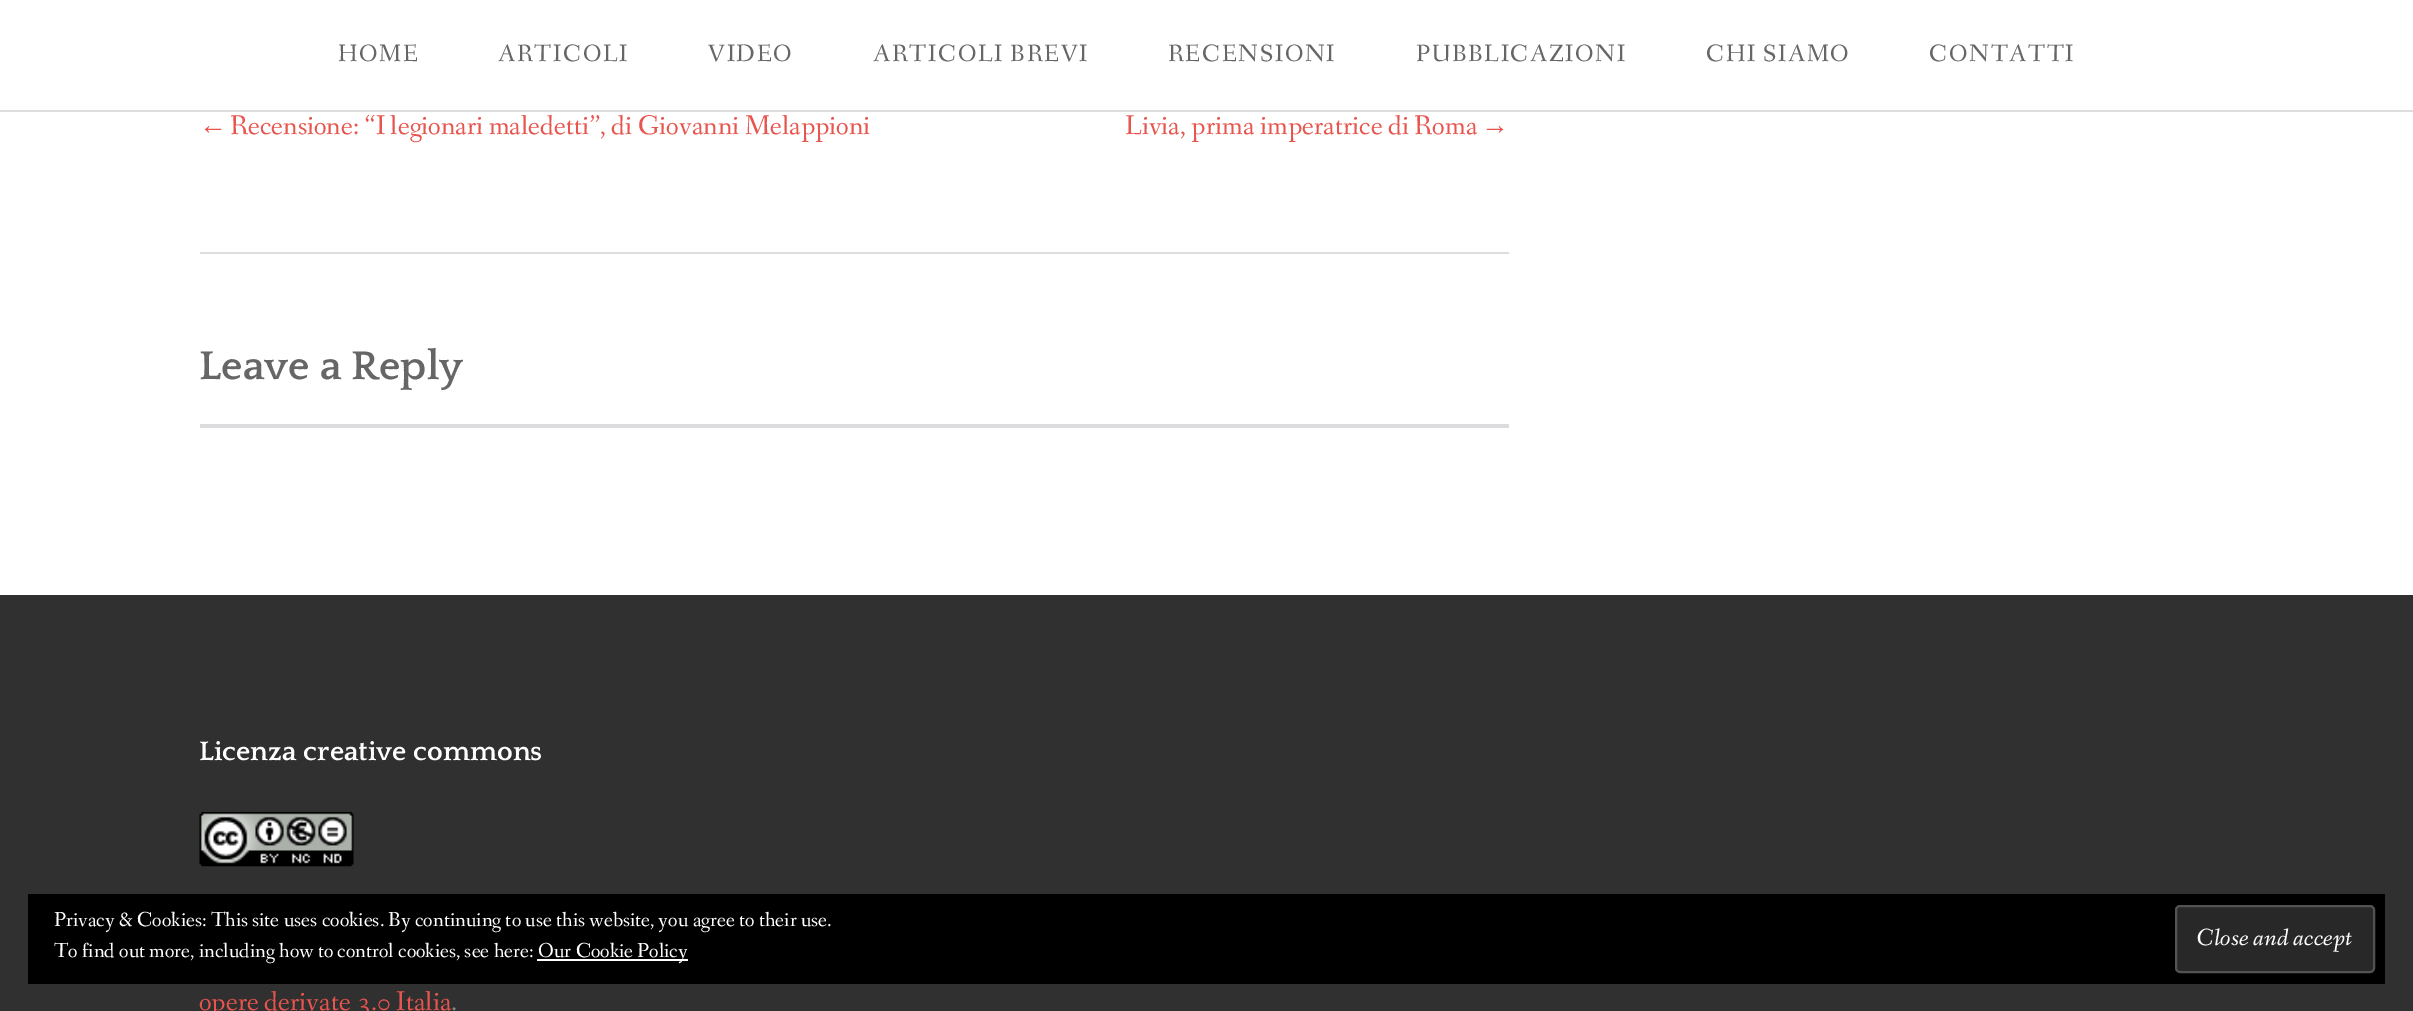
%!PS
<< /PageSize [2413 1011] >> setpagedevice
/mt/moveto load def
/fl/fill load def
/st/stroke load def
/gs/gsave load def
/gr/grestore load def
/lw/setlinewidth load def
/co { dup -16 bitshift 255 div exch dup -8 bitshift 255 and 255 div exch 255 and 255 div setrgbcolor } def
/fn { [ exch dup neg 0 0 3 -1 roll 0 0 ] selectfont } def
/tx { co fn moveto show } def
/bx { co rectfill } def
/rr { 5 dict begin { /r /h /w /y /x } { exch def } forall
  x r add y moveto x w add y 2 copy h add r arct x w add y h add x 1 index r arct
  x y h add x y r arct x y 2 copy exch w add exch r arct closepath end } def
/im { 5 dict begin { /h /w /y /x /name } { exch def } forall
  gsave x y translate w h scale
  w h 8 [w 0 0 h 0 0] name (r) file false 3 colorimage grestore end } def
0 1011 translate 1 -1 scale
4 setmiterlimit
0 0 2413 1011 16#FFFFFF bx
0 110 2413 2 16#DDDDDD bx
200 252 1309 2 16#DDDDDD bx
200 424 1309 4 16#DCDCDE bx
0 595 2413 416 16#303030 bx
(media/1.raw) 199 812 155 55 im
28 894 2357 90 16#000000 bx
537 959 151 2 16#FFFFFF bx
16#282828 co
2176 906 198 66 4 rr gs fl gr
16#535353 co
2 lw
st
/FanwoodText-Regular 24.5 fn
16#666666 co
338 61 mt 1.75 0 (HOME) ashow
498 61 mt 1.75 0 (ARTICOLI) ashow
708 61 mt 1.75 0 (VIDEO) ashow
873 61 mt 1.75 0 (ARTICOLI BREVI) ashow
1168 61 mt 1.75 0 (RECENSIONI) ashow
1416 61 mt 1.75 0 (PUBBLICAZIONI) ashow
1706 61 mt 1.75 0 (CHI SIAMO) ashow
1929 61 mt 1.75 0 (CONTATTI) ashow
(←) 199 134 /LiberationSerif-Regular 28 16#E8554E tx
(Recensione: “I legionari maledetti”, di Giovanni Melappioni) 230 134 /FanwoodText-Regular 28 16#E8554E tx
(Livia, prima imperatrice di Roma) 1125 134 /FanwoodText-Regular 28 16#E8554E tx
(→) 1481 134 /LiberationSerif-Regular 28 16#E8554E tx
(Leave a Reply) 199 379 /Quattrocento-Bold 42 16#666666 tx
(Licenza creative commons) 199 760 /Quattrocento-Bold 28 16#FFFFFF tx
(opere derivate 3.0 Italia) 199 1010 /FanwoodText-Regular 28 16#E8554E tx
(.) 451 1010 /FanwoodText-Regular 28 16#888888 tx
(Privacy & Cookies: This site uses cookies. By continuing to use this website, you agree to their use.) 54 926 /FanwoodText-Regular 21 16#FFFFFF tx
(To find out more, including how to control cookies, see here:) 54 957 /FanwoodText-Regular 21 16#FFFFFF tx
(Our Cookie Policy) 538 957 /FanwoodText-Regular 21 16#FFFFFF tx
(Close and accept) 2197 945 /FanwoodText-Italic 24.5 16#FFFFFF tx
showpage
